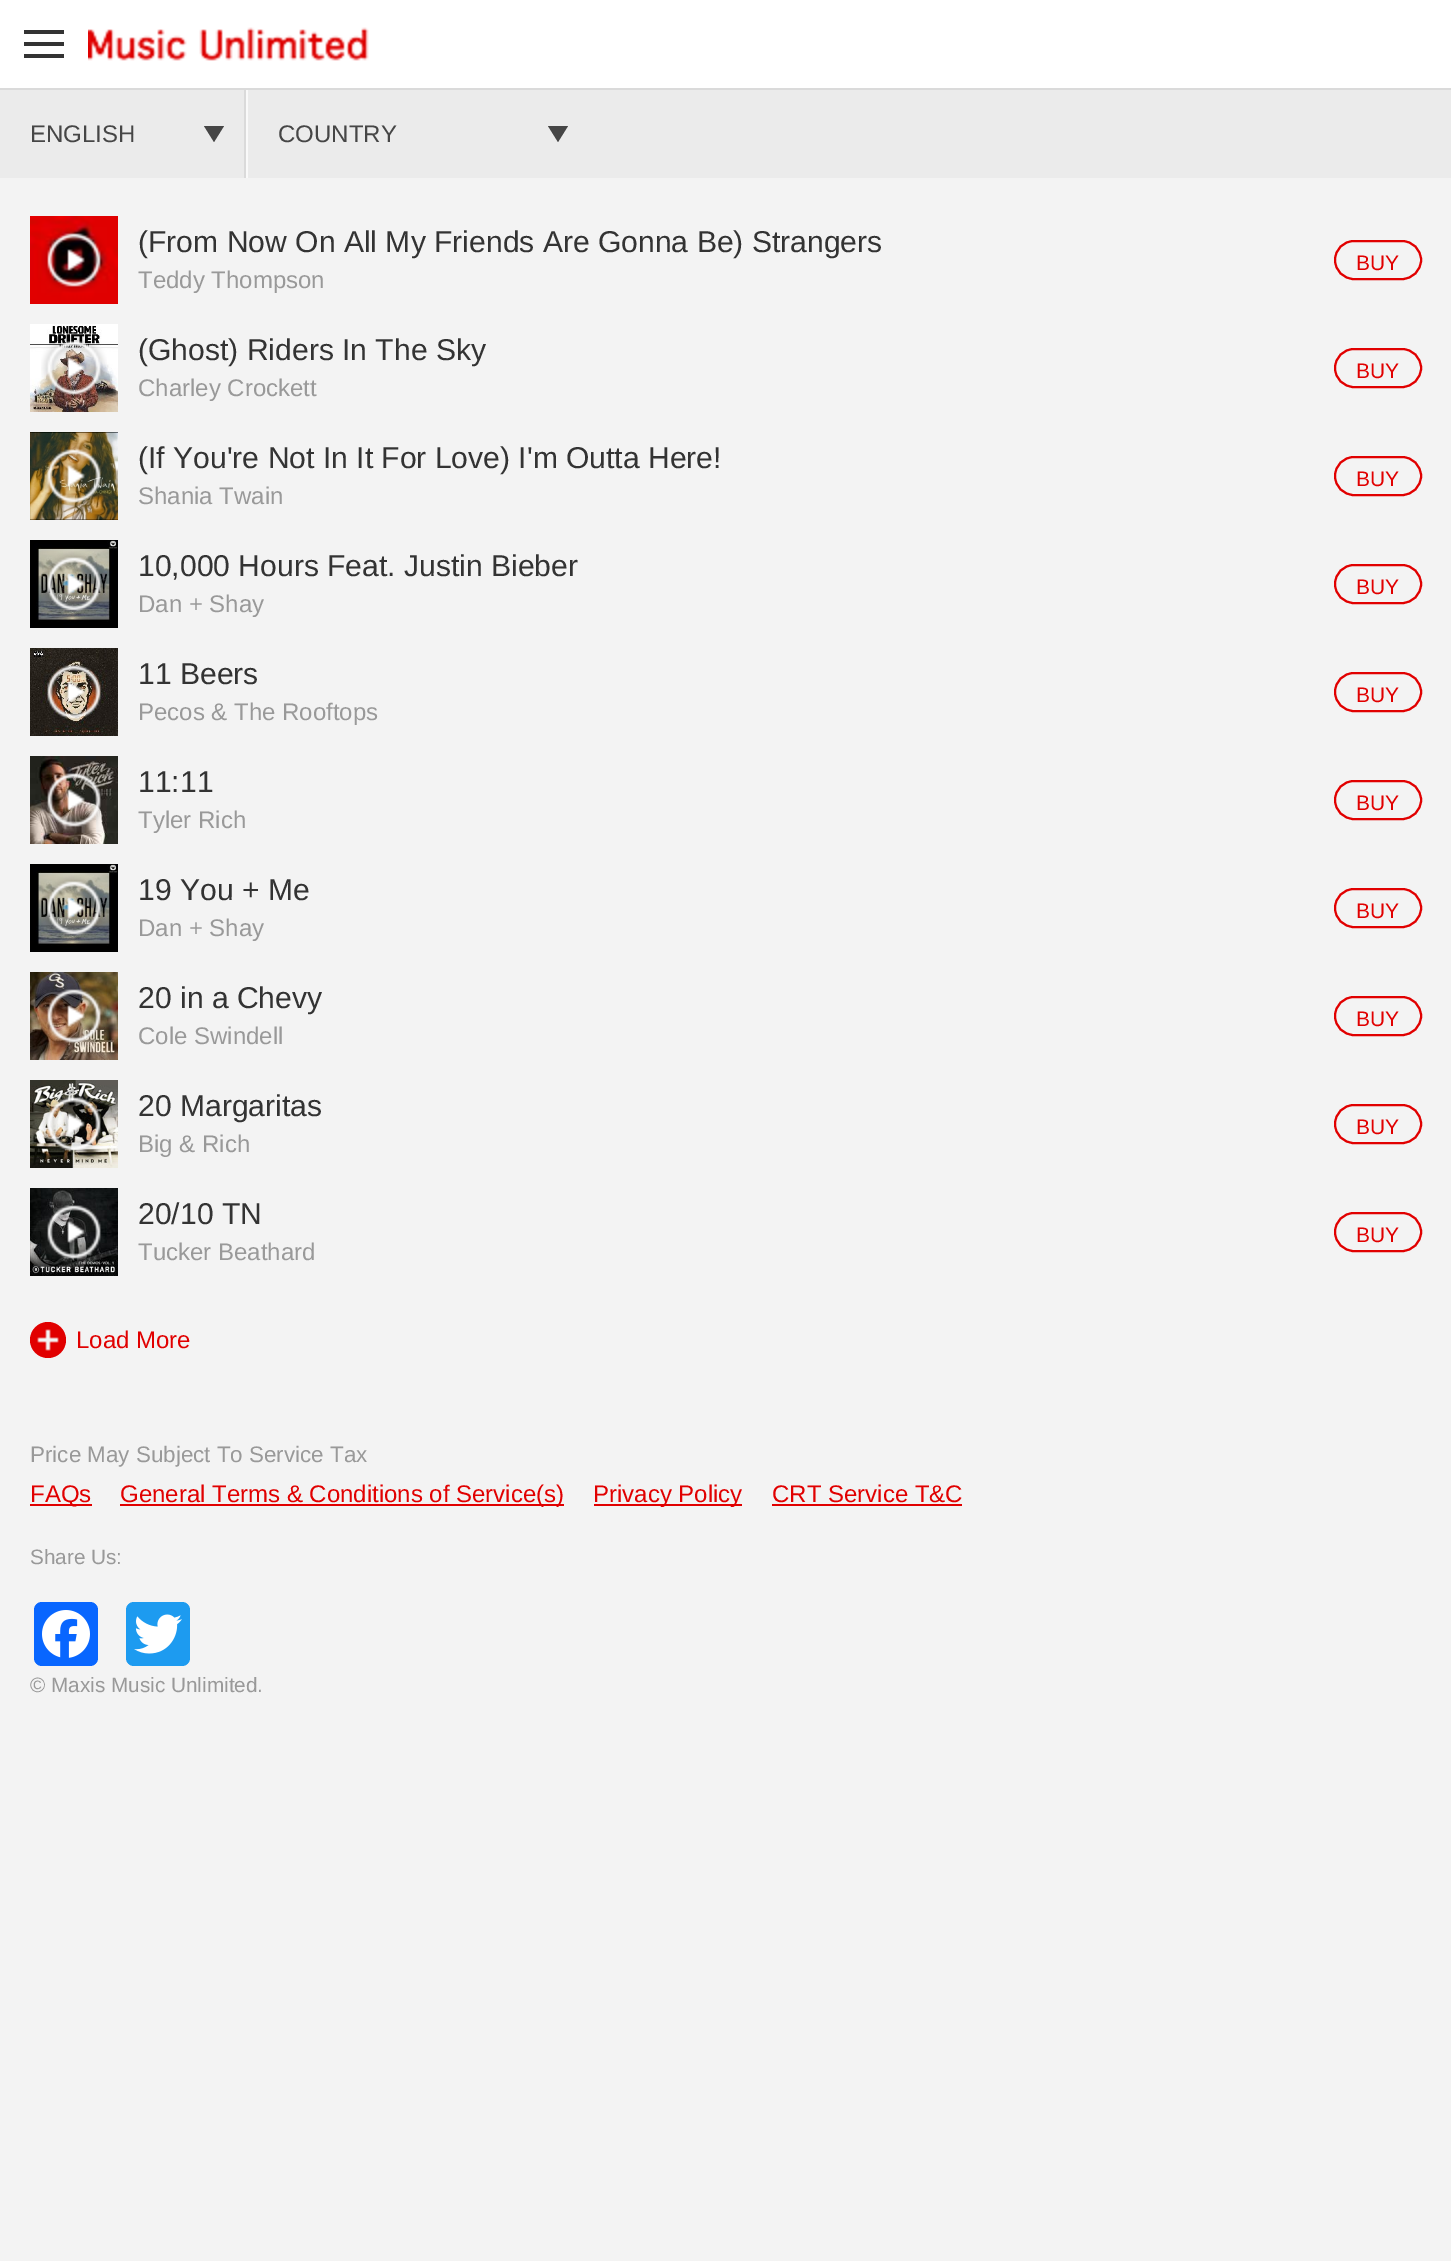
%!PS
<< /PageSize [1451 2261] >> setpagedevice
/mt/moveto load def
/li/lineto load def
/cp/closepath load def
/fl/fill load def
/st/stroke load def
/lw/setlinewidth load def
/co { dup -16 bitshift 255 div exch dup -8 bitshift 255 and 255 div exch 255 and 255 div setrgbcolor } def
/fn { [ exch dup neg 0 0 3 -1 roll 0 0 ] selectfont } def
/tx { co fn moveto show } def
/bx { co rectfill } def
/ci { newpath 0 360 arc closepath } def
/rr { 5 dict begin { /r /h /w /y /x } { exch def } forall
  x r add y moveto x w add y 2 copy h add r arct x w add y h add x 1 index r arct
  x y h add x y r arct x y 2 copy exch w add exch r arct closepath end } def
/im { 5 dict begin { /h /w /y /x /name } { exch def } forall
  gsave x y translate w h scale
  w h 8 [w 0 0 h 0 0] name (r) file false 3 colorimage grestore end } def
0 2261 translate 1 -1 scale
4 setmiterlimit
0 0 1451 2261 16#F3F3F3 bx
0 0 1451 88 16#FFFFFF bx
24 30 40 4 16#333333 bx
24 42 40 4 16#333333 bx
24 54 40 4 16#333333 bx
(media/1.raw) 88 27 281 34 im
0 90 1451 88 16#EBEBEB bx
0 88 1451 2 16#DADADA bx
244 90 2 88 16#DADADA bx
16#464646 co
204 126 mt 224 126 li 214 142 li cp fl
246 90 2 88 16#F9F9F9 bx
16#464646 co
548 126 mt 568 126 li 558 142 li cp fl
(media/2.raw) 30 216 88 88 im
(media/3.raw) 41 227 66 66 im
16#E10000 co
2 lw
1335 241 86 38 19 rr st
(media/4.raw) 30 324 88 88 im
(media/5.raw) 41 335 66 66 im
1335 349 86 38 19 rr st
(media/6.raw) 30 432 88 88 im
(media/7.raw) 43 443 63 66 im
1335 457 86 38 19 rr st
(media/8.raw) 30 540 88 88 im
(media/9.raw) 43 551 63 64 im
1335 565 86 38 19 rr st
(media/10.raw) 30 648 88 88 im
(media/11.raw) 47 662 54 59 im
1335 673 86 38 19 rr st
(media/12.raw) 30 756 88 88 im
(media/13.raw) 44 768 59 62 im
1335 781 86 38 19 rr st
(media/8.raw) 30 864 88 88 im
(media/9.raw) 43 875 63 64 im
1335 889 86 38 19 rr st
(media/14.raw) 30 972 88 88 im
(media/15.raw) 41 985 65 64 im
1335 997 86 38 19 rr st
(media/16.raw) 30 1080 88 88 im
(media/17.raw) 41 1091 66 66 im
1335 1105 86 38 19 rr st
(media/18.raw) 30 1188 88 88 im
(media/19.raw) 47 1200 54 63 im
1335 1213 86 38 19 rr st
48 1340 18 ci fl
(media/20.raw) 37 1329 22 22 im
30 1504 62 2 16#E10000 bx
120 1504 444 2 16#E10000 bx
594 1504 148 2 16#E10000 bx
772 1504 190 2 16#E10000 bx
16#0866FF co
34 1602 64 64 8 rr fl
(media/21.raw) 42 1610 48 48 im
16#1D9BF0 co
126 1602 64 64 8 rr fl
(media/22.raw) 134 1614 48 40 im
(ENGLISH) 30 142 /LiberationSans-Regular 24 16#464646 tx
(COUNTRY) 278 142 /LiberationSans-Regular 24 16#464646 tx
(\(From Now On All My Friends Are Gonna Be\) Strangers) 138 252 /LiberationSans-Regular 30.1 16#333333 tx
(Teddy Thompson) 138 288 /LiberationSans-Regular 24 16#999999 tx
(BUY) 1356 270 /LiberationSans-Regular 21 16#E10000 tx
(\(Ghost\) Riders In The Sky) 138 360 /LiberationSans-Regular 30.1 16#333333 tx
(Charley Crockett) 138 396 /LiberationSans-Regular 24 16#999999 tx
(BUY) 1356 378 /LiberationSans-Regular 21 16#E10000 tx
(\(If You're Not In It For Love\) I'm Outta Here!) 138 468 /LiberationSans-Regular 30.1 16#333333 tx
(Shania Twain) 138 504 /LiberationSans-Regular 24 16#999999 tx
(BUY) 1356 486 /LiberationSans-Regular 21 16#E10000 tx
(10,000 Hours Feat. Justin Bieber) 138 576 /LiberationSans-Regular 30.1 16#333333 tx
(Dan + Shay) 138 612 /LiberationSans-Regular 24 16#999999 tx
(BUY) 1356 594 /LiberationSans-Regular 21 16#E10000 tx
(11 Beers) 138 684 /LiberationSans-Regular 30.1 16#333333 tx
(Pecos & The Rooftops) 138 720 /LiberationSans-Regular 24 16#999999 tx
(BUY) 1356 702 /LiberationSans-Regular 21 16#E10000 tx
(11:11) 138 792 /LiberationSans-Regular 30.1 16#333333 tx
(Tyler Rich) 138 828 /LiberationSans-Regular 24 16#999999 tx
(BUY) 1356 810 /LiberationSans-Regular 21 16#E10000 tx
(19 You + Me) 138 900 /LiberationSans-Regular 30.1 16#333333 tx
(Dan + Shay) 138 936 /LiberationSans-Regular 24 16#999999 tx
(BUY) 1356 918 /LiberationSans-Regular 21 16#E10000 tx
(20 in a Chevy) 138 1008 /LiberationSans-Regular 30.1 16#333333 tx
(Cole Swindell) 138 1044 /LiberationSans-Regular 24 16#999999 tx
(BUY) 1356 1026 /LiberationSans-Regular 21 16#E10000 tx
(20 Margaritas) 138 1116 /LiberationSans-Regular 30.1 16#333333 tx
(Big & Rich) 138 1152 /LiberationSans-Regular 24 16#999999 tx
(BUY) 1356 1134 /LiberationSans-Regular 21 16#E10000 tx
(20/10 TN) 138 1224 /LiberationSans-Regular 30.1 16#333333 tx
(Tucker Beathard) 138 1260 /LiberationSans-Regular 24 16#999999 tx
(BUY) 1356 1242 /LiberationSans-Regular 21 16#E10000 tx
(Load More) 76 1348 /LiberationSans-Regular 24 16#E10000 tx
(Price May Subject To Service Tax) 30 1462 /LiberationSans-Regular 22.4 16#999999 tx
(FAQs) 30 1502 /LiberationSans-Regular 24 16#E10000 tx
(General Terms & Conditions of Service\(s\)) 120 1502 /LiberationSans-Regular 24 16#E10000 tx
(Privacy Policy) 593 1502 /LiberationSans-Regular 24 16#E10000 tx
(CRT Service T&C) 772 1502 /LiberationSans-Regular 24 16#E10000 tx
(Share Us:) 30 1564 /LiberationSans-Regular 20.75 16#999999 tx
(© Maxis Music Unlimited.) 30 1692 /LiberationSans-Regular 20.75 16#999999 tx
showpage
